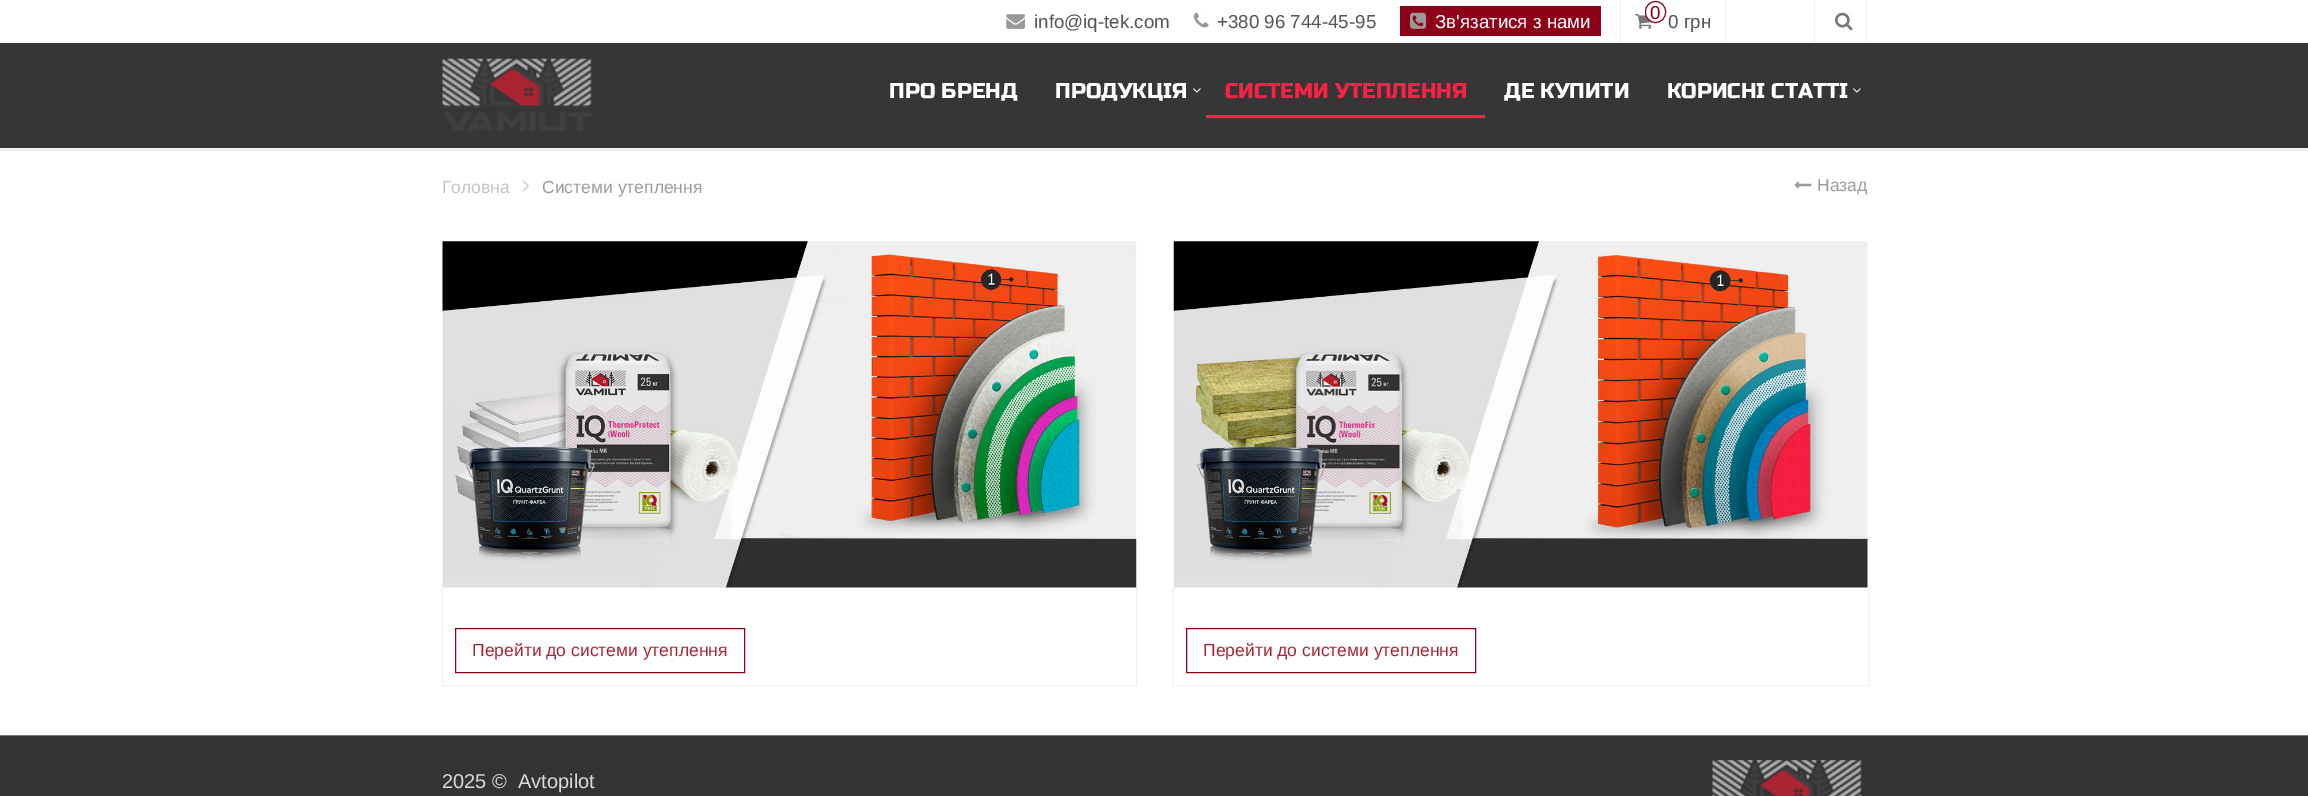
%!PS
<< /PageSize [2308 796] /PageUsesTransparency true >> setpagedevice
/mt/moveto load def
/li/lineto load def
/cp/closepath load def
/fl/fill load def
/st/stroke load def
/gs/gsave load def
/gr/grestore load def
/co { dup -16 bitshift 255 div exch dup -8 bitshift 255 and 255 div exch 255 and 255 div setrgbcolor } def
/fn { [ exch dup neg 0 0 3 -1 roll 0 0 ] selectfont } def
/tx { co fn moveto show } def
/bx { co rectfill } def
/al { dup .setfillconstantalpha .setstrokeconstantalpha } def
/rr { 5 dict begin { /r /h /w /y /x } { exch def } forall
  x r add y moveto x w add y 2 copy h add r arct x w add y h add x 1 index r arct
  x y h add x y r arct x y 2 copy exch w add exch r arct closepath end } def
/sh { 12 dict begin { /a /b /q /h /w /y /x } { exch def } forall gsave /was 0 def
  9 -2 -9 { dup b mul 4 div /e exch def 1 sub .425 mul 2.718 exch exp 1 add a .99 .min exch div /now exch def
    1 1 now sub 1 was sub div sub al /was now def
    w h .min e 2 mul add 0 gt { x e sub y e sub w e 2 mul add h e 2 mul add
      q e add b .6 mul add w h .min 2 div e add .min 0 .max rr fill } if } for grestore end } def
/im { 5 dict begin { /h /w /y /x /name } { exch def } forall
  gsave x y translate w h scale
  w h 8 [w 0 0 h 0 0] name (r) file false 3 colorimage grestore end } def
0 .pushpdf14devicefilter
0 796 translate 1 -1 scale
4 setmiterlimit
0 0 2308 796 16#FFFFFF bx
0 43 2308 105 16#363636 bx
0 148 2308 3 16#EEEEEE bx
(media/1.raw) 1006 14 19 15 im
(media/2.raw) 1193 12 16 16 im
1400 6 201 30 16#8E0017 bx
(media/3.raw) 1410 12 17 17 im
1725 0 1 43 16#EEEEEE bx
1620 0 1 43 16#EEEEEE bx
(media/4.raw) 1635 14 17 15 im
16#FFFFFF co
1645.5 1.5 20 21 10 rr gs fl gr
16#8E0017 co
st
1814 0 1 43 16#EEEEEE bx
1866 0 1 43 16#EEEEEE bx
(media/5.raw) 1835 12 18 19 im
(media/6.raw) 442 58 150 73 im
(media/7.raw) 1193 88 8 5 im
1206 115 279 3 16#FF2145 bx
(media/7.raw) 1853 88 8 5 im
(media/8.raw) 522 180 7 12 im
(media/9.raw) 1794 181 18 8 im
gs
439 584 mt 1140 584 li 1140 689 li 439 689 li cp 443 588 mt 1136 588 li 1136 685 li 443 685 li cp eoclip newpath
16#CCCCCC co
443 588 693 97 0 1 1 sh
gr
(media/10.raw) 442 241 695 347 im
16#8E0017 co
455.5 628.5 289 44 rectstroke
16#CCCCCC co
1174 588 694 97 0 1 1 sh
(media/11.raw) 1173 241 695 347 im
1174 588 694 97 16#FFFFFF bx
16#8E0017 co
1186.5 628.5 289 44 rectstroke
0 736 2308 60 16#333333 bx
0 735 2308 1 16#777777 bx
(media/12.raw) 1712 759 150 37 im
(info@iq-tek.com) 1034 28 /LiberationSans-Regular 18.75 16#555555 tx
(+380 96 744-45-95) 1217 28 /LiberationSans-Regular 18.75 16#555555 tx
(Зв'язатися з нами) 1435 28 /LiberationSans-Regular 18.75 16#FFFFFF tx
(0) 1650 19 /LiberationSans-Regular 18.75 16#8E0017 tx
(0 грн) 1668 28 /LiberationSans-Regular 18.75 16#555555 tx
(ПРО БРЕНД) 889 98 /RussoOne-Regular 21.25 16#FFFFFF tx
(ПРОДУКЦІЯ) 1055 98 /RussoOne-Regular 21.25 16#FFFFFF tx
(СИСТЕМИ УТЕПЛЕННЯ) 1225 98 /RussoOne-Regular 21.25 16#FF2145 tx
(ДЕ КУПИТИ) 1504 98 /RussoOne-Regular 21.25 16#FFFFFF tx
(КОРИСНІ СТАТТІ) 1667 98 /RussoOne-Regular 21.25 16#FFFFFF tx
(Головна) 442 193 /LiberationSans-Regular 17.5 16#C4C3C3 tx
(Системи утеплення) 542 193 /LiberationSans-Regular 17.5 16#9B9B9B tx
(Назад) 1817 191 /LiberationSans-Regular 17.5 16#9B9B9B tx
(Перейти до системи утеплення) 472 656 /LiberationSans-Regular 17.5 16#AB2433 tx
(Перейти до системи утеплення) 1203 656 /LiberationSans-Regular 17.5 16#AB2433 tx
(2025 ©) 442 788 /LiberationSans-Regular 20 16#DADADA tx
(Avtopilot) 518 788 /LiberationSans-Regular 20 16#DADADA tx
.poppdf14devicefilter showpage
